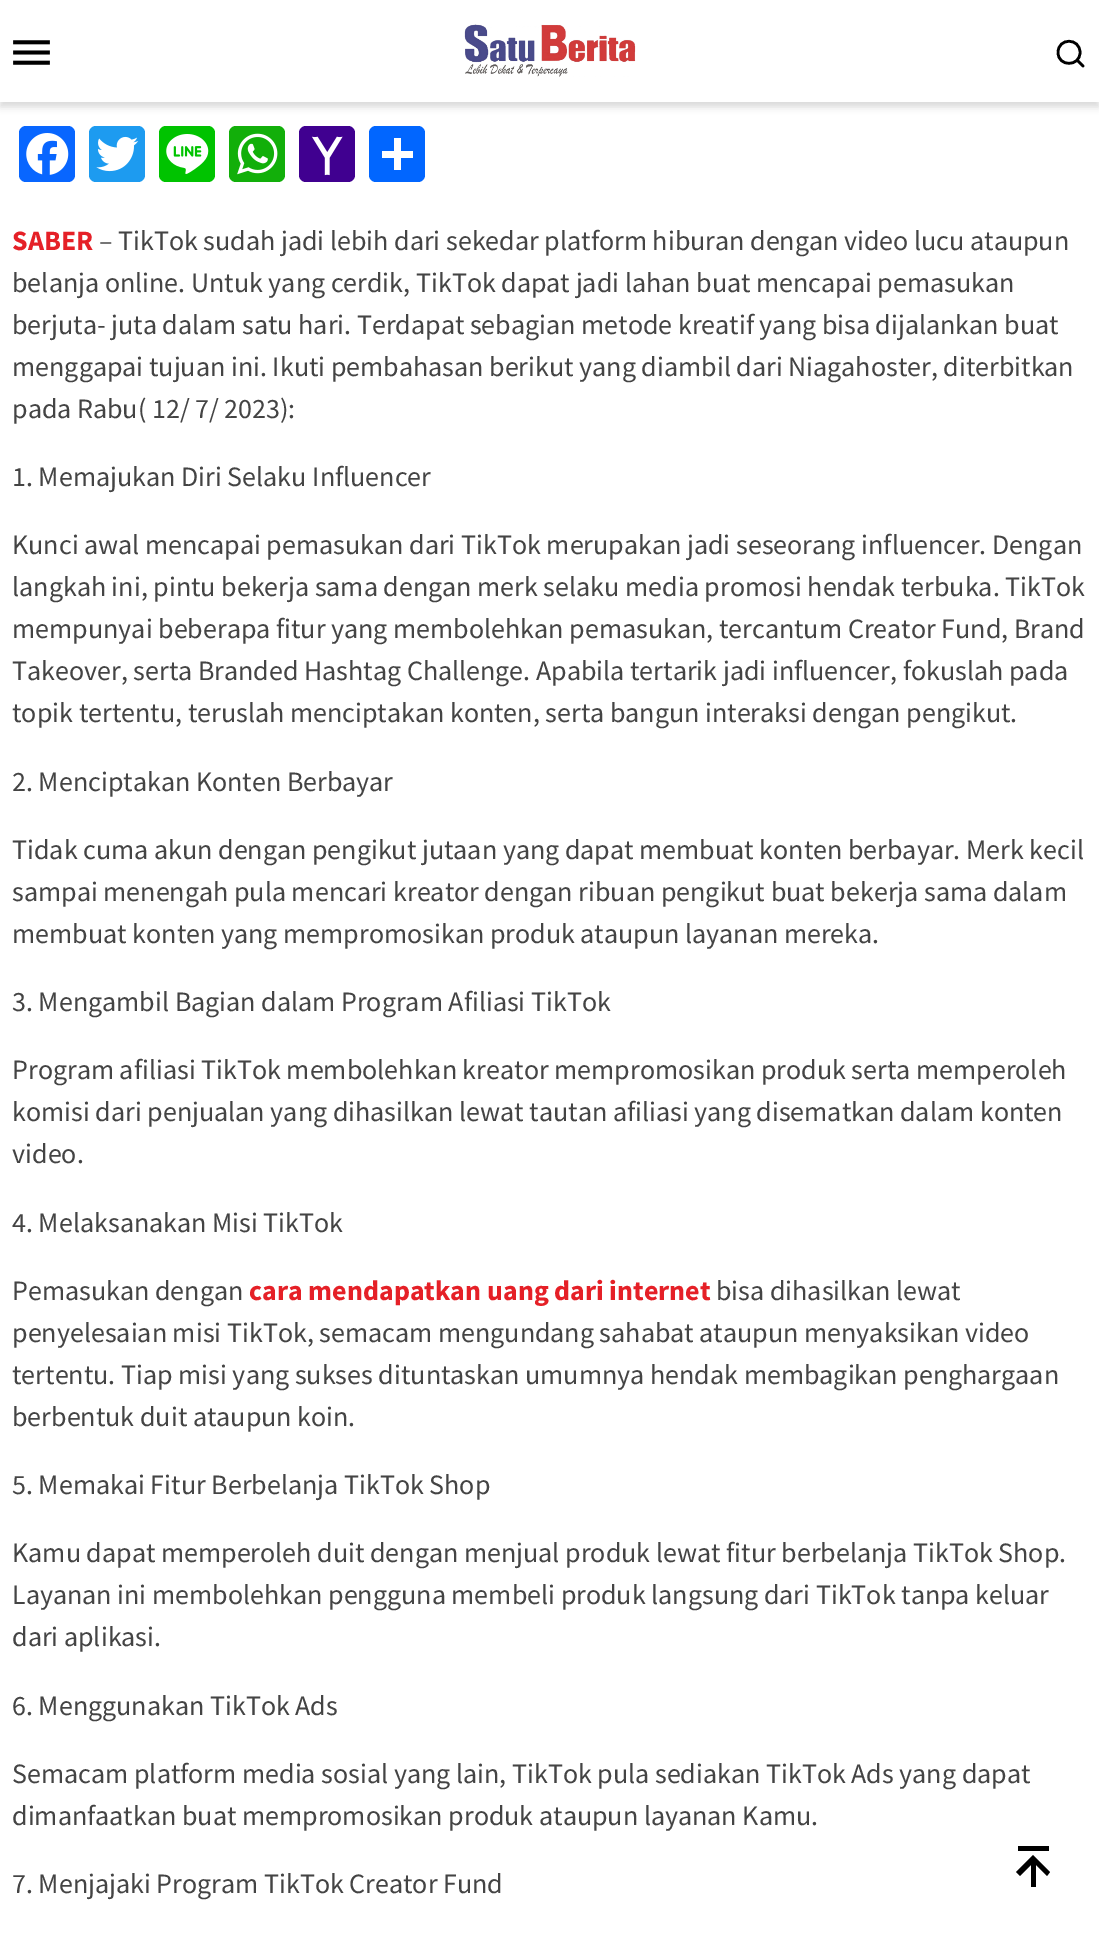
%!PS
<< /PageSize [1099 1939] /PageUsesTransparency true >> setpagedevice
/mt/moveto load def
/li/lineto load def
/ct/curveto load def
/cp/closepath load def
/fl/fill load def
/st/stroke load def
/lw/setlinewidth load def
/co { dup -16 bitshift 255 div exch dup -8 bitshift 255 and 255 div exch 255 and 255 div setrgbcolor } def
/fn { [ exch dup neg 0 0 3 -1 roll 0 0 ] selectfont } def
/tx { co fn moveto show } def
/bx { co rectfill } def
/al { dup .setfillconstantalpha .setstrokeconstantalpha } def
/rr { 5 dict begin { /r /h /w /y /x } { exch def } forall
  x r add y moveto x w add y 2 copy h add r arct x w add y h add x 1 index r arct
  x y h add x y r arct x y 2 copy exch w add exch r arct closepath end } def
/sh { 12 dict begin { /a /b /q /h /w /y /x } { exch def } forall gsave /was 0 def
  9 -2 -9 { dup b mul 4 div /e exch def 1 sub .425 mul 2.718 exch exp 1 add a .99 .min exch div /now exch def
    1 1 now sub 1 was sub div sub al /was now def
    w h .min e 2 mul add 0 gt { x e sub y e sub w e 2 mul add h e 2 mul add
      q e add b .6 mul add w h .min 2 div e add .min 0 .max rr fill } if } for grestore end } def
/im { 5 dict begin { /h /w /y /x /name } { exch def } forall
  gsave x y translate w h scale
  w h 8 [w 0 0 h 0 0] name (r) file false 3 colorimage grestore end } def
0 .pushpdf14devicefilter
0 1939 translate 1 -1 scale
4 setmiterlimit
0 0 1099 1939 16#FFFFFF bx
16#343434 co
0 5 1099 102 0 3.5 .18 sh
0 0 1099 102 16#FFFFFF bx
(media/1.raw) 13 40 37 25 im
(media/2.raw) 464 24 172 53 im
16#000000 co
2.6 lw
1 setlinecap
1083 66 mt 1077 60 li 1080 52.5 mt 1080 67 1058 67 1058 52.5 ct 1058 37.5 1080 37.5 1080 52.5 ct cp st
16#0866FF co
19 126 56 56 7 rr fl
(media/3.raw) 26 133 43 42 im
16#1D9BF0 co
89 126 56 56 7 rr fl
(media/4.raw) 96 136 43 36 im
16#00C300 co
159 126 56 56 7 rr fl
(media/5.raw) 166 134 43 40 im
16#12AF0A co
229 126 56 56 7 rr fl
(media/6.raw) 237 133 41 42 im
16#400090 co
299 126 56 56 7 rr fl
(media/7.raw) 311 136 32 40 im
16#0166FF co
369 126 56 56 7 rr fl
394 138 7 32 16#FFFFFF bx
382 151 31 7 16#FFFFFF bx
16#000000 co
1018 1846 mt 1049 1846 li 1049 1851 li 1018 1851 li cp 1020 1876 mt 1031 1865 li 1031 1887 li 1036 1887 li 1036 1865 li 1047 1876 li 1050 1872 li 1033 1855 li 1016 1872 li cp fl
(SABER) 12 250 /SourceSansPro-Bold 28 16#E52027 tx
(– TikTok sudah jadi lebih dari sekedar platform hiburan dengan video lucu ataupun) 99 250 /SourceSansPro-Regular 28 16#444444 tx
(belanja online. Untuk yang cerdik, TikTok dapat jadi lahan buat mencapai pemasukan) 12 292 /SourceSansPro-Regular 28 16#444444 tx
(berjuta- juta dalam satu hari. Terdapat sebagian metode kreatif yang bisa dijalankan buat) 12 334 /SourceSansPro-Regular 28 16#444444 tx
(menggapai tujuan ini. Ikuti pembahasan berikut yang diambil dari Niagahoster, diterbitkan) 12 376 /SourceSansPro-Regular 28 16#444444 tx
(pada Rabu\( 12/ 7/ 2023\):) 12 418 /SourceSansPro-Regular 28 16#444444 tx
(1. Memajukan Diri Selaku Influencer) 12 486 /SourceSansPro-Regular 28 16#444444 tx
(Kunci awal mencapai pemasukan dari TikTok merupakan jadi seseorang influencer. Dengan) 12 554 /SourceSansPro-Regular 28 16#444444 tx
(langkah ini, pintu bekerja sama dengan merk selaku media promosi hendak terbuka. TikTok) 12 596 /SourceSansPro-Regular 28 16#444444 tx
(mempunyai beberapa fitur yang membolehkan pemasukan, tercantum Creator Fund, Brand) 12 638 /SourceSansPro-Regular 28 16#444444 tx
(Takeover, serta Branded Hashtag Challenge. Apabila tertarik jadi influencer, fokuslah pada) 12 680 /SourceSansPro-Regular 28 16#444444 tx
(topik tertentu, teruslah menciptakan konten, serta bangun interaksi dengan pengikut.) 12 722 /SourceSansPro-Regular 28 16#444444 tx
(2. Menciptakan Konten Berbayar) 12 791 /SourceSansPro-Regular 28 16#444444 tx
(Tidak cuma akun dengan pengikut jutaan yang dapat membuat konten berbayar. Merk kecil) 12 859 /SourceSansPro-Regular 28 16#444444 tx
(sampai menengah pula mencari kreator dengan ribuan pengikut buat bekerja sama dalam) 12 901 /SourceSansPro-Regular 28 16#444444 tx
(membuat konten yang mempromosikan produk ataupun layanan mereka.) 12 943 /SourceSansPro-Regular 28 16#444444 tx
(3. Mengambil Bagian dalam Program Afiliasi TikTok) 12 1011 /SourceSansPro-Regular 28 16#444444 tx
(Program afiliasi TikTok membolehkan kreator mempromosikan produk serta memperoleh) 12 1079 /SourceSansPro-Regular 28 16#444444 tx
(komisi dari penjualan yang dihasilkan lewat tautan afiliasi yang disematkan dalam konten) 12 1121 /SourceSansPro-Regular 28 16#444444 tx
(video.) 12 1163 /SourceSansPro-Regular 28 16#444444 tx
(4. Melaksanakan Misi TikTok) 12 1232 /SourceSansPro-Regular 28 16#444444 tx
(Pemasukan dengan) 12 1300 /SourceSansPro-Regular 28 16#444444 tx
(cara mendapatkan uang dari internet) 249 1300 /SourceSansPro-Bold 28 16#E52027 tx
(bisa dihasilkan lewat) 716 1300 /SourceSansPro-Regular 28 16#444444 tx
(penyelesaian misi TikTok, semacam mengundang sahabat ataupun menyaksikan video) 12 1342 /SourceSansPro-Regular 28 16#444444 tx
(tertentu. Tiap misi yang sukses dituntaskan umumnya hendak membagikan penghargaan) 12 1384 /SourceSansPro-Regular 28 16#444444 tx
(berbentuk duit ataupun koin.) 12 1426 /SourceSansPro-Regular 28 16#444444 tx
(5. Memakai Fitur Berbelanja TikTok Shop) 12 1494 /SourceSansPro-Regular 28 16#444444 tx
(Kamu dapat memperoleh duit dengan menjual produk lewat fitur berbelanja TikTok Shop.) 12 1562 /SourceSansPro-Regular 28 16#444444 tx
(Layanan ini membolehkan pengguna membeli produk langsung dari TikTok tanpa keluar) 12 1604 /SourceSansPro-Regular 28 16#444444 tx
(dari aplikasi.) 12 1646 /SourceSansPro-Regular 28 16#444444 tx
(6. Menggunakan TikTok Ads) 12 1715 /SourceSansPro-Regular 28 16#444444 tx
(Semacam platform media sosial yang lain, TikTok pula sediakan TikTok Ads yang dapat) 12 1783 /SourceSansPro-Regular 28 16#444444 tx
(dimanfaatkan buat mempromosikan produk ataupun layanan Kamu.) 12 1825 /SourceSansPro-Regular 28 16#444444 tx
(7. Menjajaki Program TikTok Creator Fund) 12 1893 /SourceSansPro-Regular 28 16#444444 tx
.poppdf14devicefilter showpage
